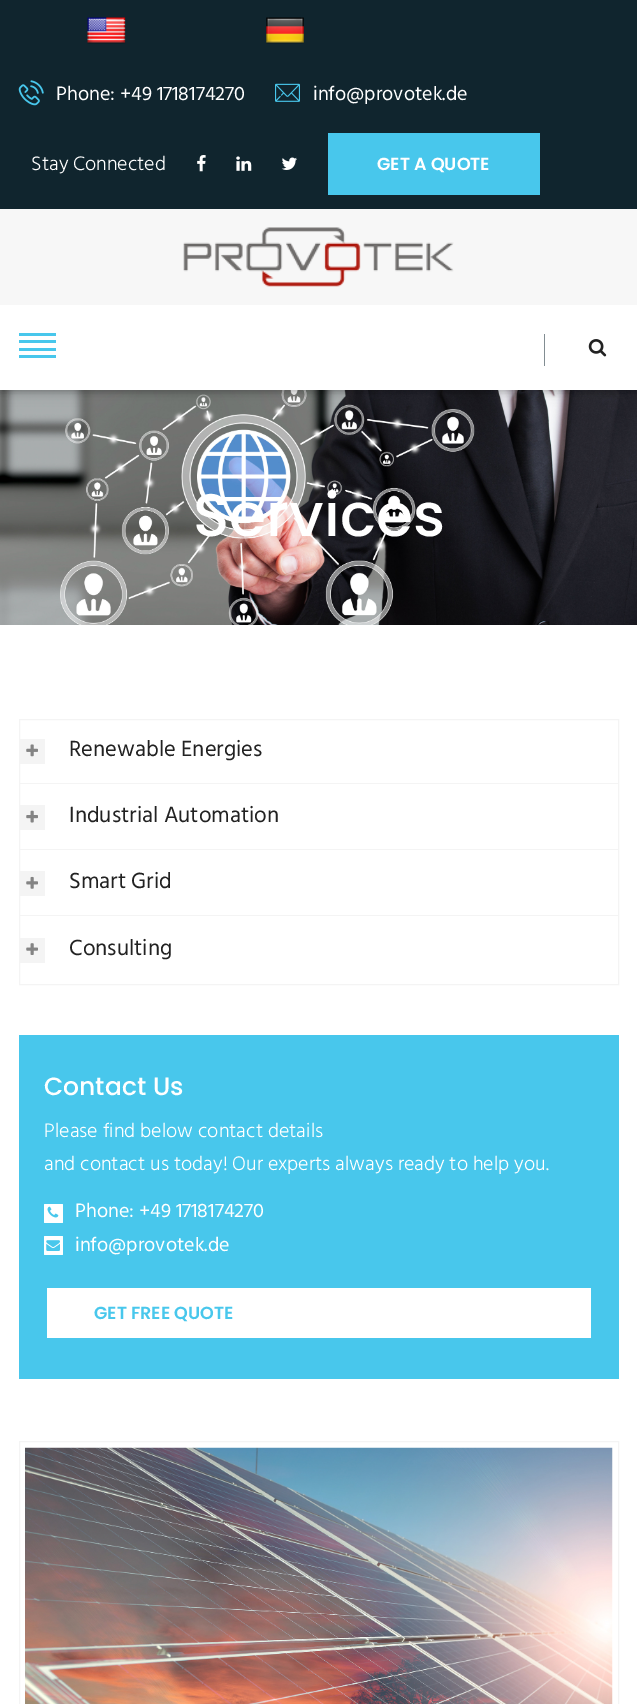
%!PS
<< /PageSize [637 1704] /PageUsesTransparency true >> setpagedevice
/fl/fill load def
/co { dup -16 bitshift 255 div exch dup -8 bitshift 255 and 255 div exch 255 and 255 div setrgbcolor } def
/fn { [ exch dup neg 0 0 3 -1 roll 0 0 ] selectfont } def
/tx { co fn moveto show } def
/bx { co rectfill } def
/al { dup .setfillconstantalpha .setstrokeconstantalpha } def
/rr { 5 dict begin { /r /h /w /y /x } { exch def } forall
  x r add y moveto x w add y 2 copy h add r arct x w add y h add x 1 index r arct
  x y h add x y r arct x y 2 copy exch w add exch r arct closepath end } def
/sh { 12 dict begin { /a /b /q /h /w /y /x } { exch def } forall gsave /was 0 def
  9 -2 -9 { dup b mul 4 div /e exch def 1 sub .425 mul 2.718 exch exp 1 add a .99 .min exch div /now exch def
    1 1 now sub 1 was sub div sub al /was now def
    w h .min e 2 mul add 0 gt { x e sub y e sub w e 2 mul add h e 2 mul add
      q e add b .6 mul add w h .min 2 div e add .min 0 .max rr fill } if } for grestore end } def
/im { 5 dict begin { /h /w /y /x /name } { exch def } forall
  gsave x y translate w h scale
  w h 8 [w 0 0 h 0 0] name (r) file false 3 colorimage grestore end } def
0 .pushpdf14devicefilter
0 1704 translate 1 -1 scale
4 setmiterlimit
0 0 637 1704 16#FFFFFF bx
(media/10.raw) 0 390 637 235 im
16#000000 co
0 211 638 182 0 6 .12 sh
0 211 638 182 0 3 .16 sh
0 0 637 209 16#10252E bx
(media/1.raw) 87 17 39 27 im
(media/2.raw) 266 17 38 27 im
(media/3.raw) 18 80 26 26 im
(media/4.raw) 275 83 25 19 im
(media/5.raw) 197 155 9 17 im
(media/6.raw) 236 156 16 15 im
(media/7.raw) 281 157 16 13 im
328 133 212 62 16#48C7EC bx
0 209 637 96 16#F7F7F7 bx
(media/8.raw) 183 227 271 60 im
0 305 637 85 16#FFFFFF bx
19 333 37 3 16#48C7EC bx
19 340 37 3 16#48C7EC bx
19 348 37 3 16#48C7EC bx
19 355 37 3 16#48C7EC bx
544 334 1 32 16#828D92 bx
(media/9.raw) 588 339 19 18 im
16#F4F4F4 co
19.5 719.5 599 265 rectstroke
20 783 598 1 16#F4F4F4 bx
20 739 25 25 16#F4F4F4 bx
(media/11.raw) 26 744 12 13 im
20 849 598 1 16#F4F4F4 bx
20 805 25 25 16#F4F4F4 bx
(media/12.raw) 26 810 12 13 im
20 915 598 1 16#F4F4F4 bx
20 871 25 25 16#F4F4F4 bx
(media/13.raw) 26 876 12 13 im
20 938 25 25 16#F4F4F4 bx
(media/14.raw) 26 943 12 12 im
19 1035 600 344 16#48C7EC bx
16#FFFFFF co
44 1204 19 19 1 rr fl
(media/15.raw) 47 1206 12 12 im
44 1236 19 19 1 rr fl
(media/16.raw) 46 1240 14 11 im
47 1288 544 50 16#FFFFFF bx
16#F4F4F4 co
19.5 1441.5 599 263 rectstroke
(media/17.raw) 25 1447 588 257 im
(Phone: +49 1718174270) 56 100 /Hind-Regular 20 16#FFFFFF tx
(info@provotek.de) 313 100 /Hind-Regular 20 16#FFFFFF tx
(Stay Connected) 31 170 /Hind-Light 20 16#FFFFFF tx
(GET A QUOTE) 377 170 /Poppins-SemiBold 17.5 16#FFFFFF tx
(Services) 193 536 /Poppins-Medium 60 16#FFFFFF tx
(Renewable Energies) 69 756 /Hind-Regular 22.5 16#222222 tx
(Industrial Automation) 69 822 /Hind-Regular 22.5 16#222222 tx
(Smart Grid) 69 888 /Hind-Regular 22.5 16#222222 tx
(Consulting) 69 955 /Hind-Regular 22.5 16#222222 tx
(Contact Us) 44 1095 /Poppins-Medium 25 16#FFFFFF tx
(Please find below contact details) 44 1137 /Hind-Light 20 16#FFFFFF tx
(and contact us today! Our experts always ready to help you.) 44 1170 /Hind-Light 20 16#FFFFFF tx
(Phone: +49 1718174270) 75 1217 /Hind-Regular 20 16#FFFFFF tx
(info@provotek.de) 75 1251 /Hind-Regular 20 16#FFFFFF tx
(GET FREE QUOTE) 94 1319 /Poppins-SemiBold 17.5 16#48C7EC tx
.poppdf14devicefilter showpage
